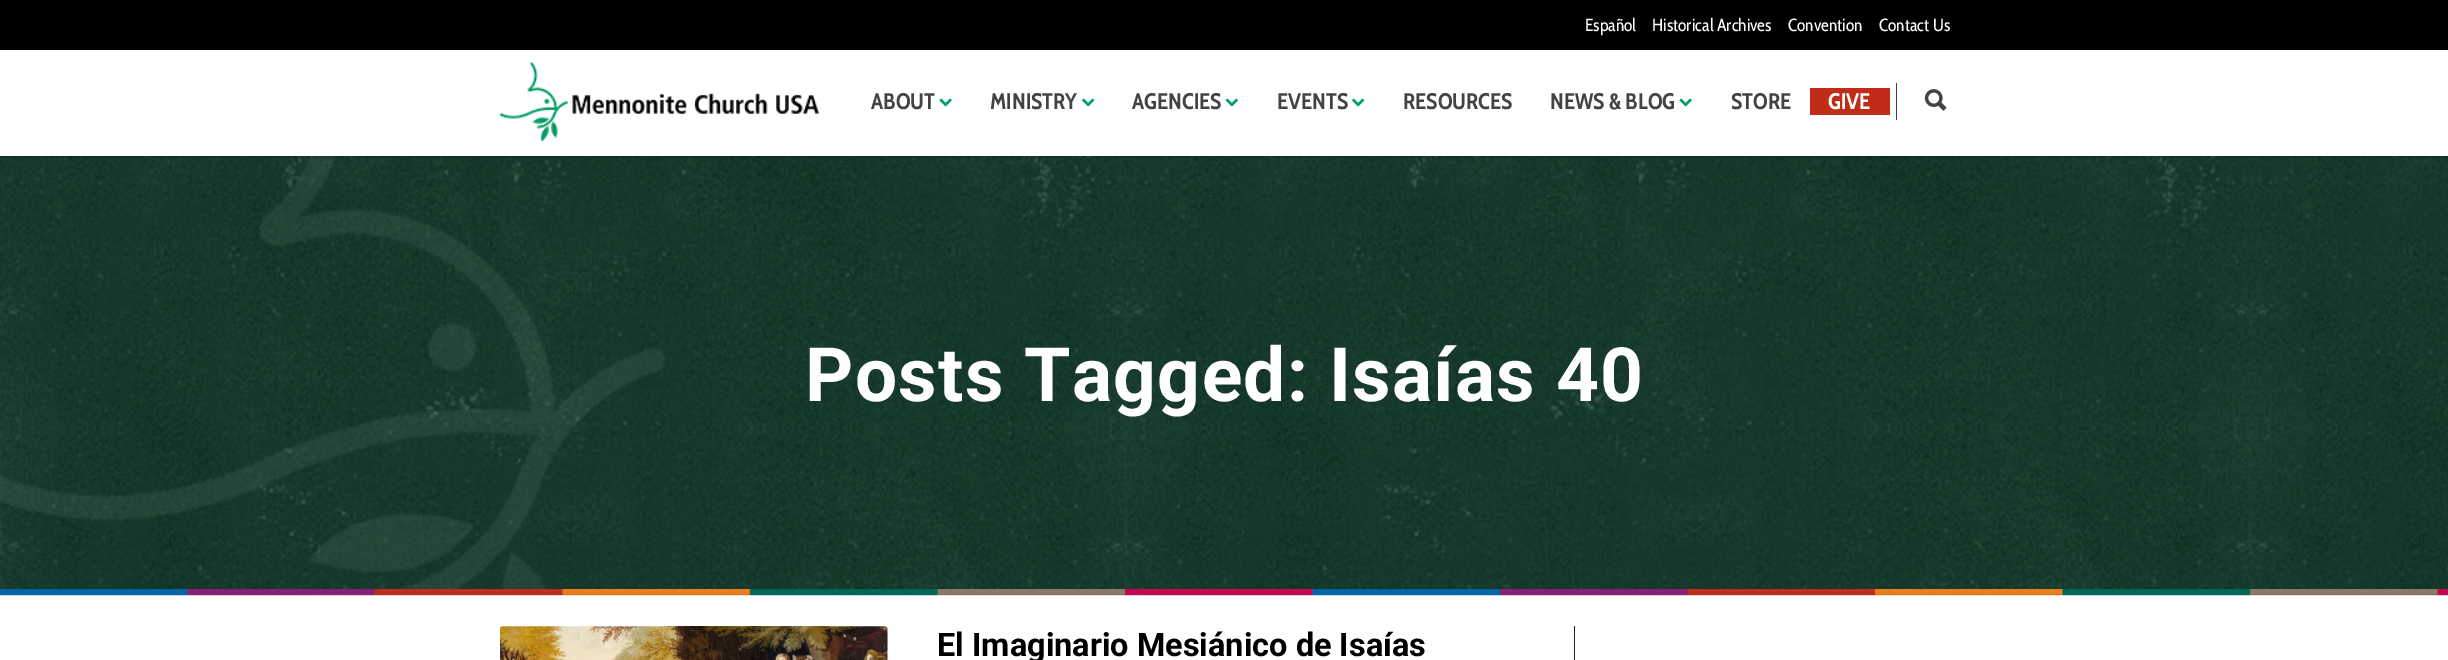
%!PS
<< /PageSize [2448 660] /PageUsesTransparency true >> setpagedevice
/mt/moveto load def
/gs/gsave load def
/gr/grestore load def
/co { dup -16 bitshift 255 div exch dup -8 bitshift 255 and 255 div exch 255 and 255 div setrgbcolor } def
/fn { [ exch dup neg 0 0 3 -1 roll 0 0 ] selectfont } def
/tx { co fn moveto show } def
/bx { co rectfill } def
/al { dup .setfillconstantalpha .setstrokeconstantalpha } def
/rr { 5 dict begin { /r /h /w /y /x } { exch def } forall
  x r add y moveto x w add y 2 copy h add r arct x w add y h add x 1 index r arct
  x y h add x y r arct x y 2 copy exch w add exch r arct closepath end } def
/sh { 12 dict begin { /a /b /q /h /w /y /x } { exch def } forall gsave /was 0 def
  9 -2 -9 { dup b mul 4 div /e exch def 1 sub .425 mul 2.718 exch exp 1 add a .99 .min exch div /now exch def
    1 1 now sub 1 was sub div sub al /was now def
    w h .min e 2 mul add 0 gt { x e sub y e sub w e 2 mul add h e 2 mul add
      q e add b .6 mul add w h .min 2 div e add .min 0 .max rr fill } if } for grestore end } def
/im { 5 dict begin { /h /w /y /x /name } { exch def } forall
  gsave x y translate w h scale
  w h 8 [w 0 0 h 0 0] name (r) file false 3 colorimage grestore end } def
0 .pushpdf14devicefilter
0 660 translate 1 -1 scale
4 setmiterlimit
0 0 2448 660 16#FFFFFF bx
(media/6.raw) 0 156 2448 439 im
gs
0 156 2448 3 rectclip
16#000000 co
-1 49 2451 109 0 1 .16 sh
gr
0 0 2448 50 16#000000 bx
(media/1.raw) 499 62 320 80 im
(media/2.raw) 939 98 13 9 im
(media/3.raw) 1082 98 13 9 im
(media/4.raw) 1225 98 13 9 im
(media/3.raw) 1352 98 13 9 im
(media/2.raw) 1679 98 13 9 im
1810 88 80 27 16#C02C18 bx
1896 83 1 37 16#434343 bx
(media/5.raw) 1924 89 23 22 im
(media/7.raw) 0 589 2448 7 im
1574 626 1 34 16#222222 bx
(media/8.raw) 500 626 388 34 im
(Español) 1585 31 /CabinCondensed-Regular 17.5 16#FFFFFF tx
(Historical Archives) 1652 31 /CabinCondensed-Regular 17.5 16#FFFFFF tx
(Convention) 1788 31 /CabinCondensed-Regular 17.5 16#FFFFFF tx
(Contact Us) 1879 31 /CabinCondensed-Regular 17.5 16#FFFFFF tx
(ABOUT) 871 109 /CabinCondensed-Bold 22.5 16#434343 tx
(MINISTRY) 990 109 /CabinCondensed-Bold 22.5 16#434343 tx
(AGENCIES) 1132 109 /CabinCondensed-Bold 22.5 16#434343 tx
(EVENTS) 1277 109 /CabinCondensed-Bold 22.5 16#434343 tx
(RESOURCES) 1403 109 /CabinCondensed-Bold 22.5 16#434343 tx
(NEWS & BLOG) 1550 109 /CabinCondensed-Bold 22.5 16#434343 tx
(STORE) 1731 109 /CabinCondensed-Bold 22.5 16#434343 tx
(GIVE) 1828 109 /CabinCondensed-Bold 22.5 16#FFFFFF tx
/Roboto-Bold 75 fn
805 401 mt 1.25 0 (Posts Tagged: Isaías 40) ashow
(El Imaginario Mesiánico de Isaías) 937 656 /Roboto-Bold 32.5 16#000000 tx
.poppdf14devicefilter showpage
